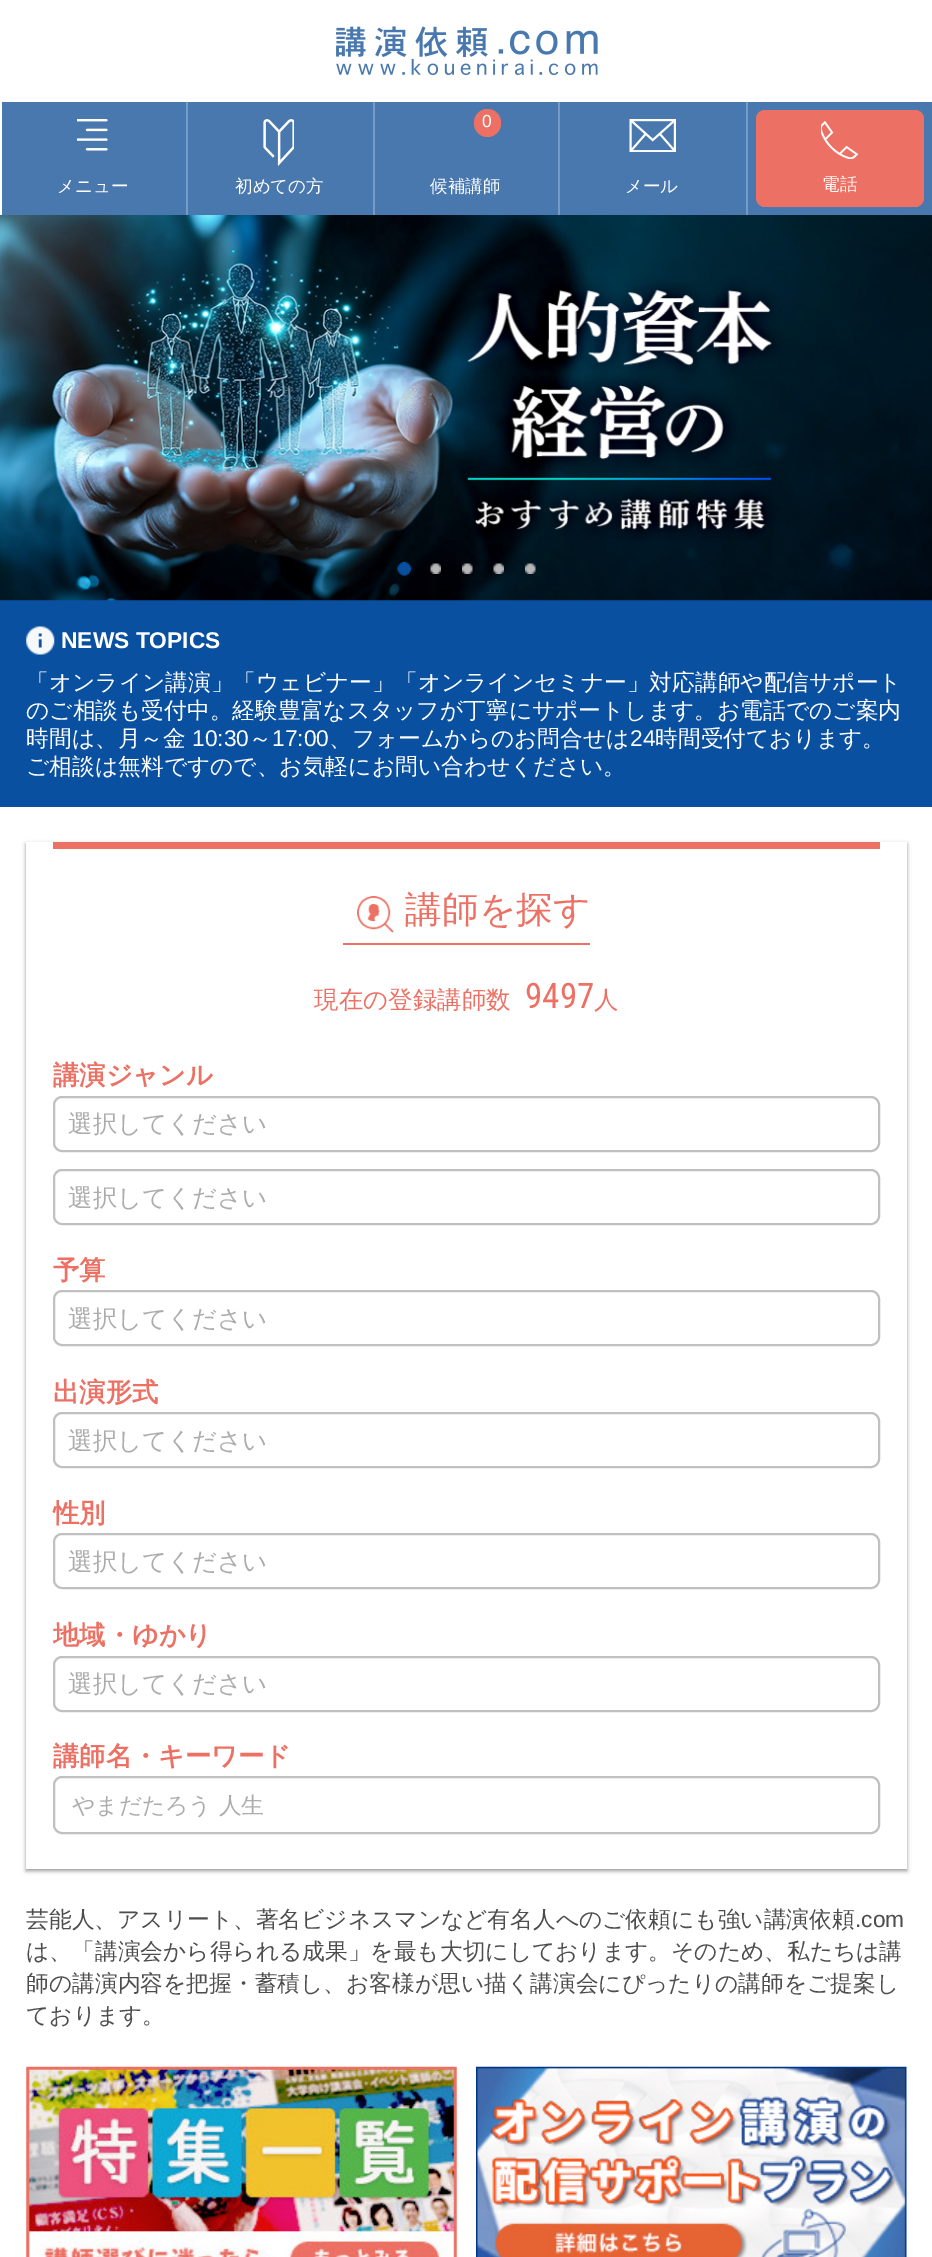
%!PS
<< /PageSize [932 2257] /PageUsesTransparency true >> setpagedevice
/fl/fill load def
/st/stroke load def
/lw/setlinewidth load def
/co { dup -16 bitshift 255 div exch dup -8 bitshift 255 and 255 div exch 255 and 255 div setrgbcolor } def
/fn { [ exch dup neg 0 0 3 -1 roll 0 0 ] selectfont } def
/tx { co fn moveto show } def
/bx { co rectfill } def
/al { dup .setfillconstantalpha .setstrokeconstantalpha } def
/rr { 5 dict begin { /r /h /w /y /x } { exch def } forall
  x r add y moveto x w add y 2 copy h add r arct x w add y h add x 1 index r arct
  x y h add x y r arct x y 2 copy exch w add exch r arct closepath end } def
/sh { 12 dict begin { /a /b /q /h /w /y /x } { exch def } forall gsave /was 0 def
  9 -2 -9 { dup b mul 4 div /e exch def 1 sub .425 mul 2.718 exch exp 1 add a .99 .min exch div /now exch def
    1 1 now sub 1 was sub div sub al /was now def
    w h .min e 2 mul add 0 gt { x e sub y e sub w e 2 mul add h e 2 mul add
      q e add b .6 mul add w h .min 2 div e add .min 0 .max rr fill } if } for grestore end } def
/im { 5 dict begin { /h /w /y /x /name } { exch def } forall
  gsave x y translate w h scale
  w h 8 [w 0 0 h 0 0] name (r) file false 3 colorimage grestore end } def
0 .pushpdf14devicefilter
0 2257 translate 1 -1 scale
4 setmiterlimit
0 0 932 2257 16#FFFFFF bx
(media/1.raw) 336 26 262 49 im
2 102 930 113 16#4978AE bx
186 102 2 113 16#749BC6 bx
(media/2.raw) 77 119 31 32 im
373 102 2 113 16#749BC6 bx
(media/3.raw) 263 119 31 47 im
558 102 2 113 16#749BC6 bx
16#EC7063 co
474 109 27 28 13.5 rr fl
746 102 2 113 16#749BC6 bx
(media/4.raw) 629 119 47 33 im
16#EC7063 co
756 110 168 97 9 rr fl
(media/5.raw) 821 121 38 38 im
0 600 932 207 16#0A50A1 bx
(media/6.raw) 0 215 932 386 im
(media/7.raw) 397 561 15 15 im
(media/8.raw) 430 563 11 11 im
(media/9.raw) 462 563 11 11 im
(media/10.raw) 493 563 11 11 im
(media/11.raw) 525 563 11 11 im
(media/12.raw) 26 626 29 29 im
16#000000 co
26 844 881 1027 0 2 .4 sh
26 842 881 1027 16#FFFFFF bx
53 842 827 7 16#EC7063 bx
343 943 247 2 16#EC7063 bx
(media/13.raw) 357 896 37 37 im
16#C0C0C0 co
2 lw
54 1097 825 54 8 rr st
54 1170 825 54 8 rr st
54 1291 825 54 8 rr st
54 1413 825 54 8 rr st
54 1534 825 54 8 rr st
54 1657 825 54 8 rr st
54 1777 825 56 8 rr st
(media/14.raw) 26 2066 431 191 im
(media/15.raw) 476 2066 431 191 im
(メニュー) 57 192 /WenQuanYiZenHei-Medium 17.5 16#FFFFFF tx
(初めての方) 235 192 /WenQuanYiZenHei-Medium 17.5 16#FFFFFF tx
(0) 482 127 /LiberationSans-Regular 17.5 16#FFFFFF tx
(候補講師) 430 192 /WenQuanYiZenHei-Medium 17.5 16#FFFFFF tx
(メール) 625 192 /WenQuanYiZenHei-Medium 17.5 16#FFFFFF tx
(電話) 822 190 /WenQuanYiZenHei-Medium 17.5 16#FFFFFF tx
(NEWS TOPICS) 61 648 /LiberationSans-Bold 22.75 16#FFFFFF tx
(「オンライン講演」「ウェビナー」「オンラインセミナー」対応講師や配信サポート) 26 690 /WenQuanYiZenHei-Medium 22.75 16#FFFFFF tx
(のご相談も受付中。経験豊富なスタッフが丁寧にサポートします。お電話でのご案内) 26 718 /WenQuanYiZenHei-Medium 22.75 16#FFFFFF tx
(時間は、月～金) 26 746 /WenQuanYiZenHei-Medium 22.75 16#FFFFFF tx
(10:30) 192 746 /LiberationSans-Regular 22.75 16#FFFFFF tx
(～) 249 746 /WenQuanYiZenHei-Medium 22.75 16#FFFFFF tx
(17:00) 272 746 /LiberationSans-Regular 22.75 16#FFFFFF tx
(、フォームからのお問合せは) 329 746 /WenQuanYiZenHei-Medium 22.75 16#FFFFFF tx
(24) 630 746 /LiberationSans-Regular 22.75 16#FFFFFF tx
(時間受付ております。) 655 746 /WenQuanYiZenHei-Medium 22.75 16#FFFFFF tx
(ご相談は無料ですので、お気軽にお問い合わせください。) 26 774 /WenQuanYiZenHei-Medium 22.75 16#FFFFFF tx
(講師を探す) 405 922 /WenQuanYiZenHei-Medium 36.75 16#EC7063 tx
(現在の登録講師数) 314 1008 /WenQuanYiZenHei-Medium 24.5 16#EC7063 tx
(9497) 525 1008 /RobotoCondensed-Regular 35 16#EC7063 tx
(人) 594 1008 /WenQuanYiZenHei-Medium 24.5 16#EC7063 tx
(講演ジャンル) 53 1084 /WenQuanYiZenHei-Bold 26.25 16#EC7063 tx
(選択してください) 68 1132 /WenQuanYiZenHei-Medium 24.5 16#ACACAC tx
(選択してください) 68 1206 /WenQuanYiZenHei-Medium 24.5 16#ACACAC tx
(予算) 53 1279 /WenQuanYiZenHei-Bold 26.25 16#EC7063 tx
(選択してください) 68 1327 /WenQuanYiZenHei-Medium 24.5 16#ACACAC tx
(出演形式) 53 1401 /WenQuanYiZenHei-Bold 26.25 16#EC7063 tx
(選択してください) 68 1449 /WenQuanYiZenHei-Medium 24.5 16#ACACAC tx
(性別) 53 1522 /WenQuanYiZenHei-Bold 26.25 16#EC7063 tx
(選択してください) 68 1570 /WenQuanYiZenHei-Medium 24.5 16#ACACAC tx
(地域・ゆかり) 53 1644 /WenQuanYiZenHei-Bold 26.25 16#EC7063 tx
(選択してください) 68 1692 /WenQuanYiZenHei-Medium 24.5 16#ACACAC tx
(講師名・キーワード) 53 1765 /WenQuanYiZenHei-Bold 26.25 16#EC7063 tx
(やまだたろう 人生) 72 1813 /WenQuanYiZenHei-Medium 22.75 16#ACACAC tx
(芸能人、アスリート、著名ビジネスマンなど有名人へのご依頼にも強い講演依頼) 26 1927 /WenQuanYiZenHei-Medium 22.75 16#4D4D4D tx
(.com) 855 1927 /LiberationSans-Regular 22.75 16#4D4D4D tx
(は、「講演会から得られる成果」を最も大切にしております。そのため、私たちは講) 26 1959 /WenQuanYiZenHei-Medium 22.75 16#4D4D4D tx
(師の講演内容を把握・蓄積し、お客様が思い描く講演会にぴったりの講師をご提案し) 26 1991 /WenQuanYiZenHei-Medium 22.75 16#4D4D4D tx
(ております。) 26 2023 /WenQuanYiZenHei-Medium 22.75 16#4D4D4D tx
.poppdf14devicefilter showpage
